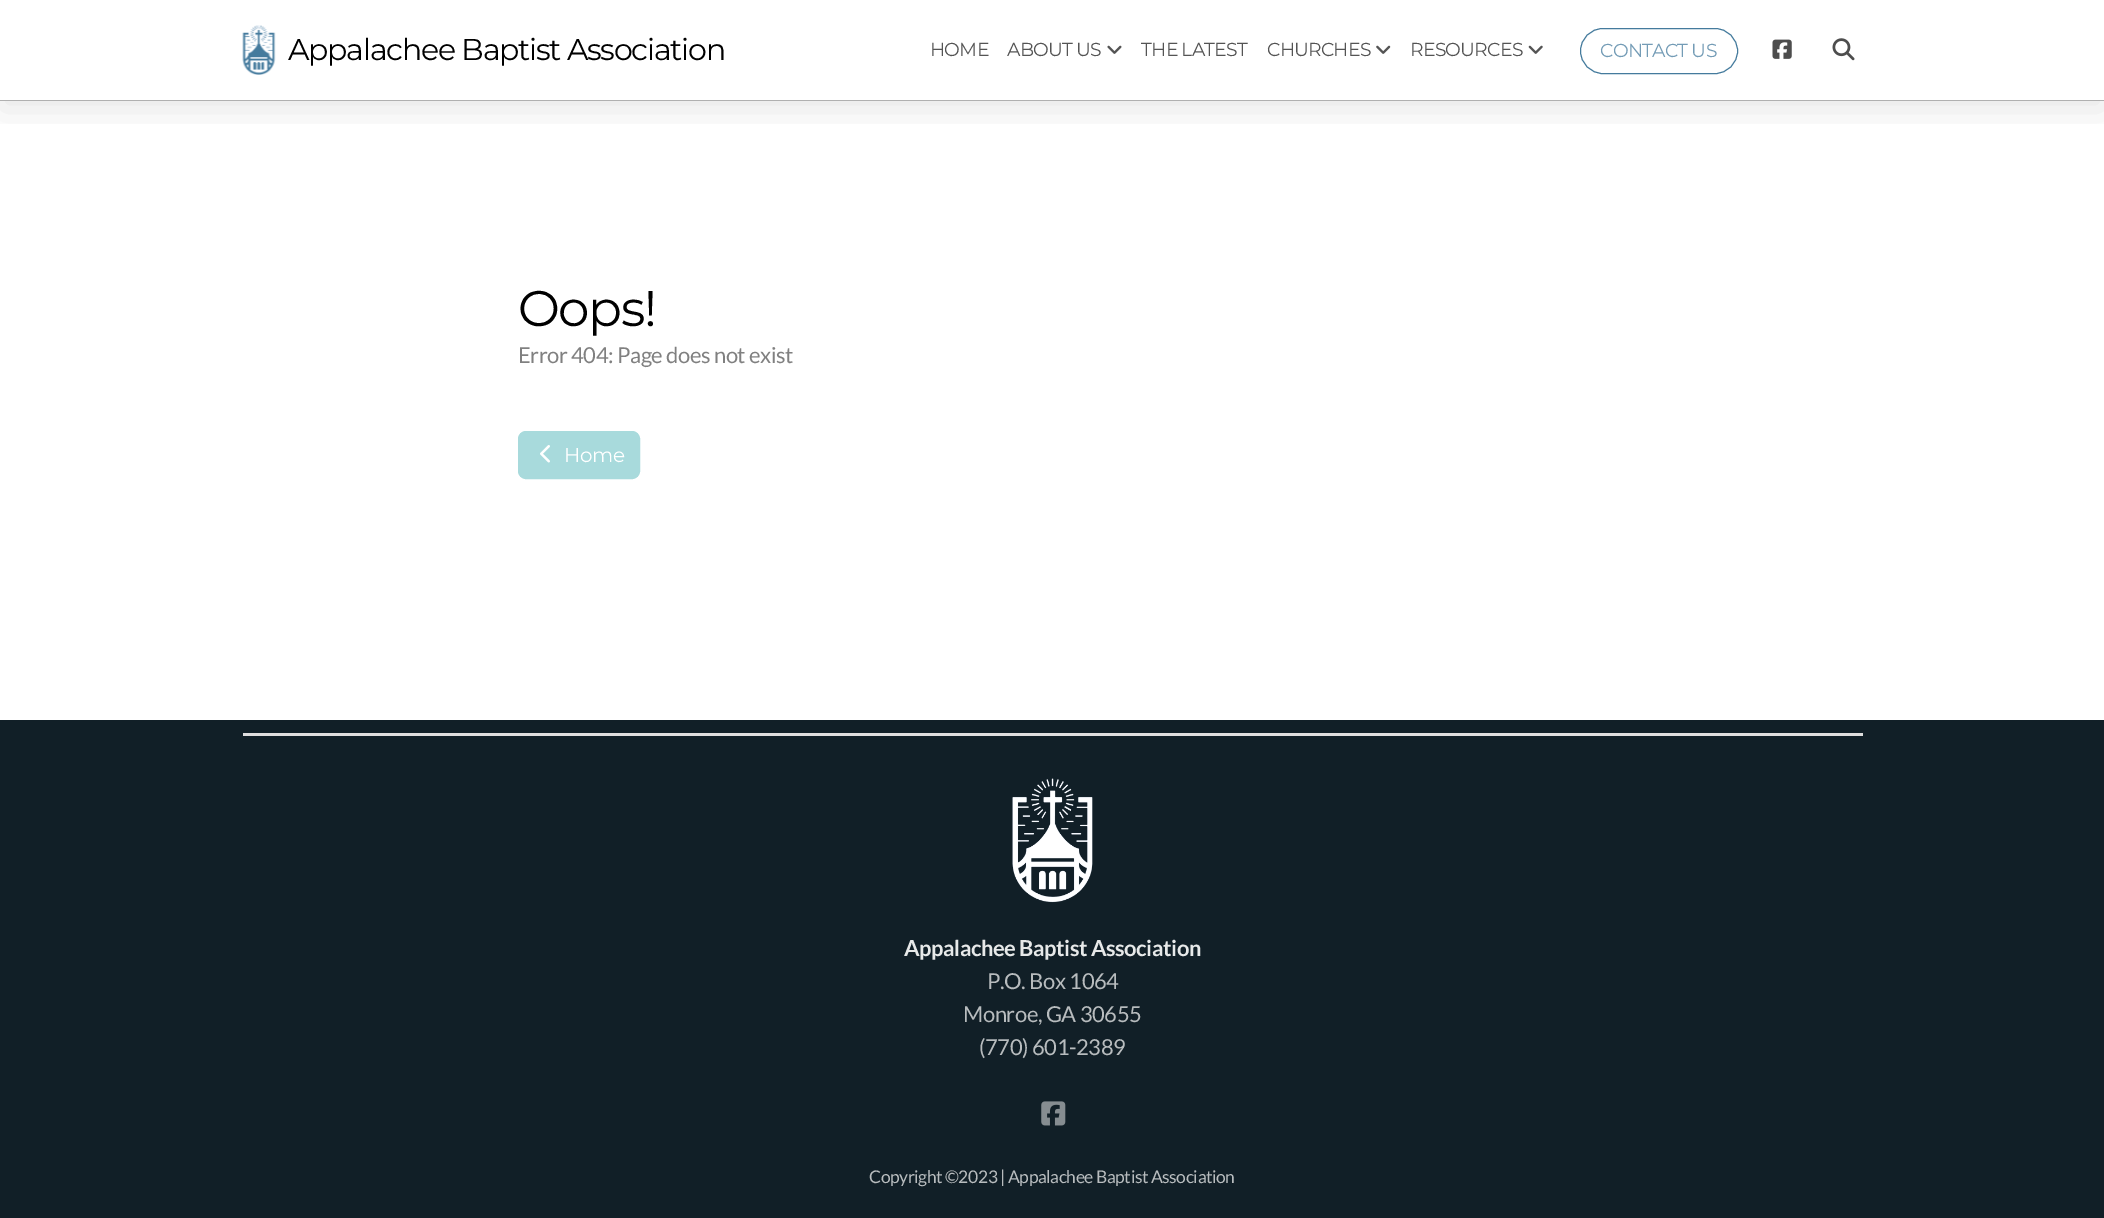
%!PS
<< /PageSize [2104 1218] /PageUsesTransparency true >> setpagedevice
/mt/moveto load def
/fl/fill load def
/st/stroke load def
/gs/gsave load def
/gr/grestore load def
/co { dup -16 bitshift 255 div exch dup -8 bitshift 255 and 255 div exch 255 and 255 div setrgbcolor } def
/fn { [ exch dup neg 0 0 3 -1 roll 0 0 ] selectfont } def
/bx { co rectfill } def
/al { dup .setfillconstantalpha .setstrokeconstantalpha } def
/rr { 5 dict begin { /r /h /w /y /x } { exch def } forall
  x r add y moveto x w add y 2 copy h add r arct x w add y h add x 1 index r arct
  x y h add x y r arct x y 2 copy exch w add exch r arct closepath end } def
/sh { 12 dict begin { /a /b /q /h /w /y /x } { exch def } forall gsave /was 0 def
  9 -2 -9 { dup b mul 4 div /e exch def 1 sub .425 mul 2.718 exch exp 1 add a .99 .min exch div /now exch def
    1 1 now sub 1 was sub div sub al /was now def
    w h .min e 2 mul add 0 gt { x e sub y e sub w e 2 mul add h e 2 mul add
      q e add b .6 mul add w h .min 2 div e add .min 0 .max rr fill } if } for grestore end } def
/im { 5 dict begin { /h /w /y /x /name } { exch def } forall
  gsave x y translate w h scale
  w h 8 [w 0 0 h 0 0] name (r) file false 3 colorimage grestore end } def
0 .pushpdf14devicefilter
0 1218 translate 1 -1 scale
4 setmiterlimit
0 0 2104 1218 16#FFFFFF bx
gs
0 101 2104 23 rectclip
16#000000 co
0 9 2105 101 0 18 .09 sh
gr
0 100 2104 1 16#B0B0B0 bx
(media/1.raw) 242 25 34 50 im
(media/2.raw) 1107 45 15 9 im
(media/3.raw) 1376 45 15 9 im
(media/4.raw) 1528 45 15 9 im
16#457B9D co
1580.5 28.5 157 45 22.5 rr st
(media/5.raw) 1772 39 20 20 im
(media/6.raw) 1832 38 23 23 im
16#A8DADC co
518.5 431.5 121 47 7.5 rr gs fl gr
st
(media/7.raw) 540 445 10 18 im
0 720 2104 498 16#111F27 bx
243 733 1620 3 16#DEDEDE bx
(media/8.raw) 1012 778 81 125 im
(media/9.raw) 1041 1101 25 25 im
/Montserrat-Regular 30 fn
16#000000 co
288 60 mt -1.25 0 (Appalachee Baptist Association) ashow
/Montserrat-Regular 18.75 fn
16#545454 co
930 56 mt -.75 0 (HOME) ashow
1007 56 mt -.75 0 (ABOUT US) ashow
1141 56 mt -.75 0 (THE LATEST) ashow
1267 56 mt -.75 0 (CHURCHES) ashow
1410 56 mt -.75 0 (RESOURCES) ashow
16#749CB6 co
1600 57 mt -.75 0 (CONTACT US) ashow
/Montserrat-Regular 50 fn
16#000000 co
518 326 mt -1.5 0 (Oops!) ashow
/Lato-Regular 22 fn
16#808080 co
518 363 mt -.45 0 (Error 404: Page does not exist) ashow
/Montserrat-Regular 20 fn
16#FFFFFF co
564 462 mt -.45 0 (Home) ashow
/Lato-Bold 22 fn
16#E7E9E9 co
904 956 mt -.45 0 (Appalachee Baptist Association) ashow
/Lato-Regular 22 fn
16#B8BCBE co
987 989 mt -.45 0 (P.O. Box 1064) ashow
963 1022 mt -.45 0 (Monroe, GA 30655) ashow
979 1055 mt -.45 0 (\(770\) 601-2389) ashow
/Lato-Regular 17.5 fn
869 1183 mt -.45 0 (Copyright ©2023 | Appalachee Baptist Association) ashow
.poppdf14devicefilter showpage
